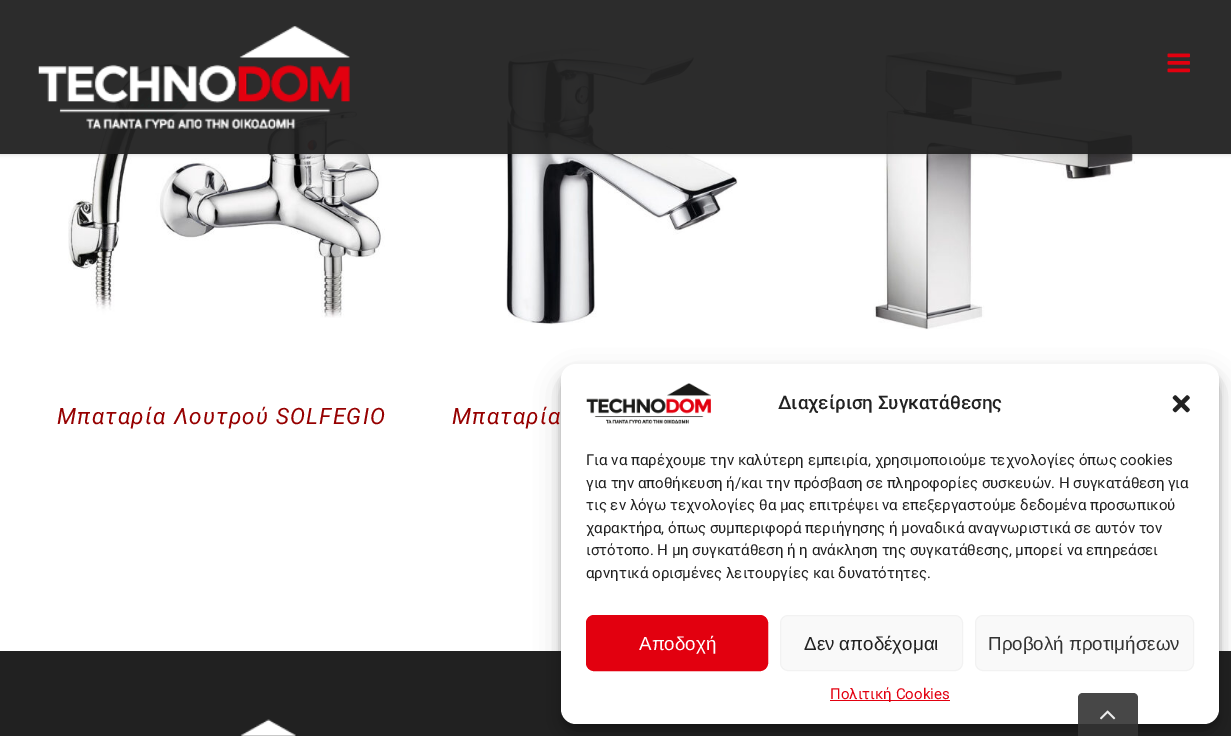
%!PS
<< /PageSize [1231 736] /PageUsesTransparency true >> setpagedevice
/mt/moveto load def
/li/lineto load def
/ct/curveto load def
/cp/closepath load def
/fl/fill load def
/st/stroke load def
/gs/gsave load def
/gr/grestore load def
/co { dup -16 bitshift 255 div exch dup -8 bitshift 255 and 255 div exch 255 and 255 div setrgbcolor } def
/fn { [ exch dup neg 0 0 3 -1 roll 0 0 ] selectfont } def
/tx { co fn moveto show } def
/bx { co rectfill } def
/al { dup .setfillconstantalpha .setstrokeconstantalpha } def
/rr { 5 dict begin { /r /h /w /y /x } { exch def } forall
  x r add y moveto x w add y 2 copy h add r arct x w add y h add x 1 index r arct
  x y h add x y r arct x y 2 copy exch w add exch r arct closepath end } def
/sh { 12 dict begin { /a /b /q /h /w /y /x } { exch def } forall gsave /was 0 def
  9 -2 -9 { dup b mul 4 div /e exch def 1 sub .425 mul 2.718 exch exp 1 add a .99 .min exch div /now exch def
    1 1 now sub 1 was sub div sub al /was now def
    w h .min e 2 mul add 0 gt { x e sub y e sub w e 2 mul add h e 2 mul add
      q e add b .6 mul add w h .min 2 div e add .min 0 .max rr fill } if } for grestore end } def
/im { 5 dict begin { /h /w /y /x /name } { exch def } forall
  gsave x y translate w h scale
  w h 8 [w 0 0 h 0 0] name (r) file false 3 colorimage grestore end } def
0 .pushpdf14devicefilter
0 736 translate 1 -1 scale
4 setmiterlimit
0 0 1231 736 16#FFFFFF bx
(media/3.raw) 873 51 262 279 im
(media/4.raw) 68 63 317 255 im
(media/5.raw) 505 47 233 278 im
gs
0 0 mt 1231 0 li 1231 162 li 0 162 li cp 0 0 mt 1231 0 li 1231 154 li 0 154 li cp eoclip newpath
16#000000 co
0 1 1231 154 0 2 .12 sh
gr
0.95 al
0 0 1231 154 16#212121 bx
1 al
(media/1.raw) 38 26 312 103 im
(media/2.raw) 1167 53 23 20 im
0 651 1231 85 16#212121 bx
(media/6.raw) 240 719 56 17 im
16#000000 co
561 371 658 360 15 4 .23 sh
561 376 658 360 15 12.5 .19 sh
16#FFFFFF co
561 364 658 360 15 rr fl
(media/7.raw) 586 383 125 41 im
(media/8.raw) 1172 395 18 18 im
16#E2000F co
586.5 615.5 181 55 7.5 rr gs fl gr
st
16#F9F9F9 co
780.5 615.5 182 55 7.5 rr gs fl gr
16#F2F2F2 co
st
16#F9F9F9 co
975.5 615.5 218 55 7.5 rr gs fl gr
16#F2F2F2 co
st
830 700 120 1 16#E2000F bx
0.9 al
16#333333 co
1083 693 mt 1133 693 li 1136 693 1138 695 1138 698 ct 1138 736 li 1078 736 li 1078 698 li 1078 695 1080 693 1083 693 ct cp fl
1 al
(media/9.raw) 1100 710 16 10 im
/Roboto-Italic 22.5 fn
16#960000 co
57 424 mt 1.25 0 (Μπαταρία Λουτρού SOLFEGIO) ashow
452 424 mt 1.25 0 (Μπαταρία) ashow
(Διαχείριση Συγκατάθεσης) 778 409 /Roboto-Medium 18.75 16#222222 tx
(Για να παρέχουμε την καλύτερη εμπειρία, χρησιμοποιούμε τεχνολογίες όπως cookies) 586 465 /Roboto-Regular 15 16#222222 tx
(για την αποθήκευση ή/και την πρόσβαση σε πληροφορίες συσκευών. Η συγκατάθεση για) 586 488 /Roboto-Regular 15 16#222222 tx
(τις εν λόγω τεχνολογίες θα μας επιτρέψει να επεξεργαστούμε δεδομένα προσωπικού) 586 510 /Roboto-Regular 15 16#222222 tx
(χαρακτήρα, όπως συμπεριφορά περιήγησης ή μοναδικά αναγνωριστικά σε αυτόν τον) 586 533 /Roboto-Regular 15 16#222222 tx
(ιστότοπο. Η μη συγκατάθεση ή η ανάκληση της συγκατάθεσης, μπορεί να επηρεάσει) 586 555 /Roboto-Regular 15 16#222222 tx
(αρνητικά ορισμένες λειτουργίες και δυνατότητες.) 586 578 /Roboto-Regular 15 16#222222 tx
(Αποδοχή) 639 650 /LiberationSans-Regular 18.75 16#FFFFFF tx
(Δεν αποδέχομαι) 804 650 /LiberationSans-Regular 18.75 16#222222 tx
(Προβολή προτιμήσεων) 988 650 /LiberationSans-Regular 18.75 16#333333 tx
(Πολιτική Cookies) 830 699 /Roboto-Regular 15 16#E2000F tx
.poppdf14devicefilter showpage
